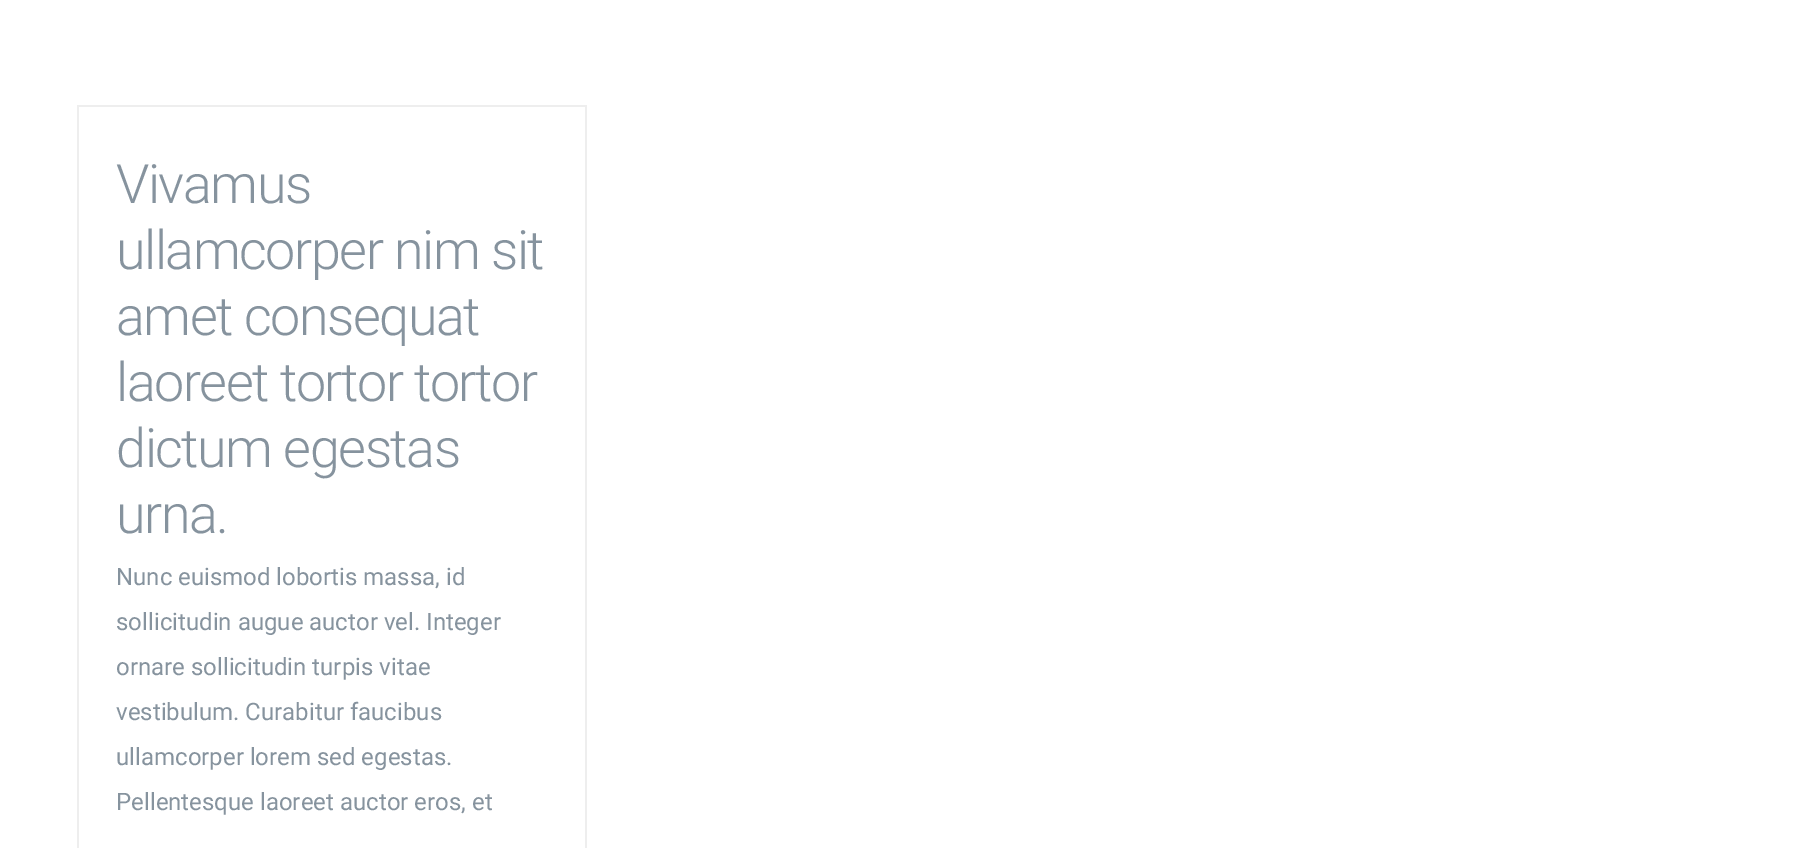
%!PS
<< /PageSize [1802 848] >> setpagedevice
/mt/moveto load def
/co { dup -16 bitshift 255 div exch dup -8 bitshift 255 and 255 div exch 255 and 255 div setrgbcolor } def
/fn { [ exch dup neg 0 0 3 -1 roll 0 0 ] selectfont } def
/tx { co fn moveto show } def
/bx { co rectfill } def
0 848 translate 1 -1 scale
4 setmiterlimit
0 0 1802 848 16#FFFFFF bx
77 105 510 2 16#EEEEEE bx
585 105 2 743 16#EEEEEE bx
77 105 2 743 16#EEEEEE bx
/Roboto-Light 54 fn
16#86939E co
116 203 mt -1.5 0 (Vivamus) ashow
116 269 mt -1.5 0 (ullamcorper nim sit) ashow
116 335 mt -1.5 0 (amet consequat) ashow
116 401 mt -1.5 0 (laoreet tortor tortor) ashow
116 467 mt -1.5 0 (dictum egestas) ashow
116 533 mt -1.5 0 (urna.) ashow
(Nunc euismod lobortis massa, id) 116 585 /Roboto-Regular 24 16#86939E tx
(sollicitudin augue auctor vel. Integer) 116 630 /Roboto-Regular 24 16#86939E tx
(ornare sollicitudin turpis vitae) 116 675 /Roboto-Regular 24 16#86939E tx
(vestibulum. Curabitur faucibus) 116 720 /Roboto-Regular 24 16#86939E tx
(ullamcorper lorem sed egestas.) 116 765 /Roboto-Regular 24 16#86939E tx
(Pellentesque laoreet auctor eros, et) 116 810 /Roboto-Regular 24 16#86939E tx
showpage
